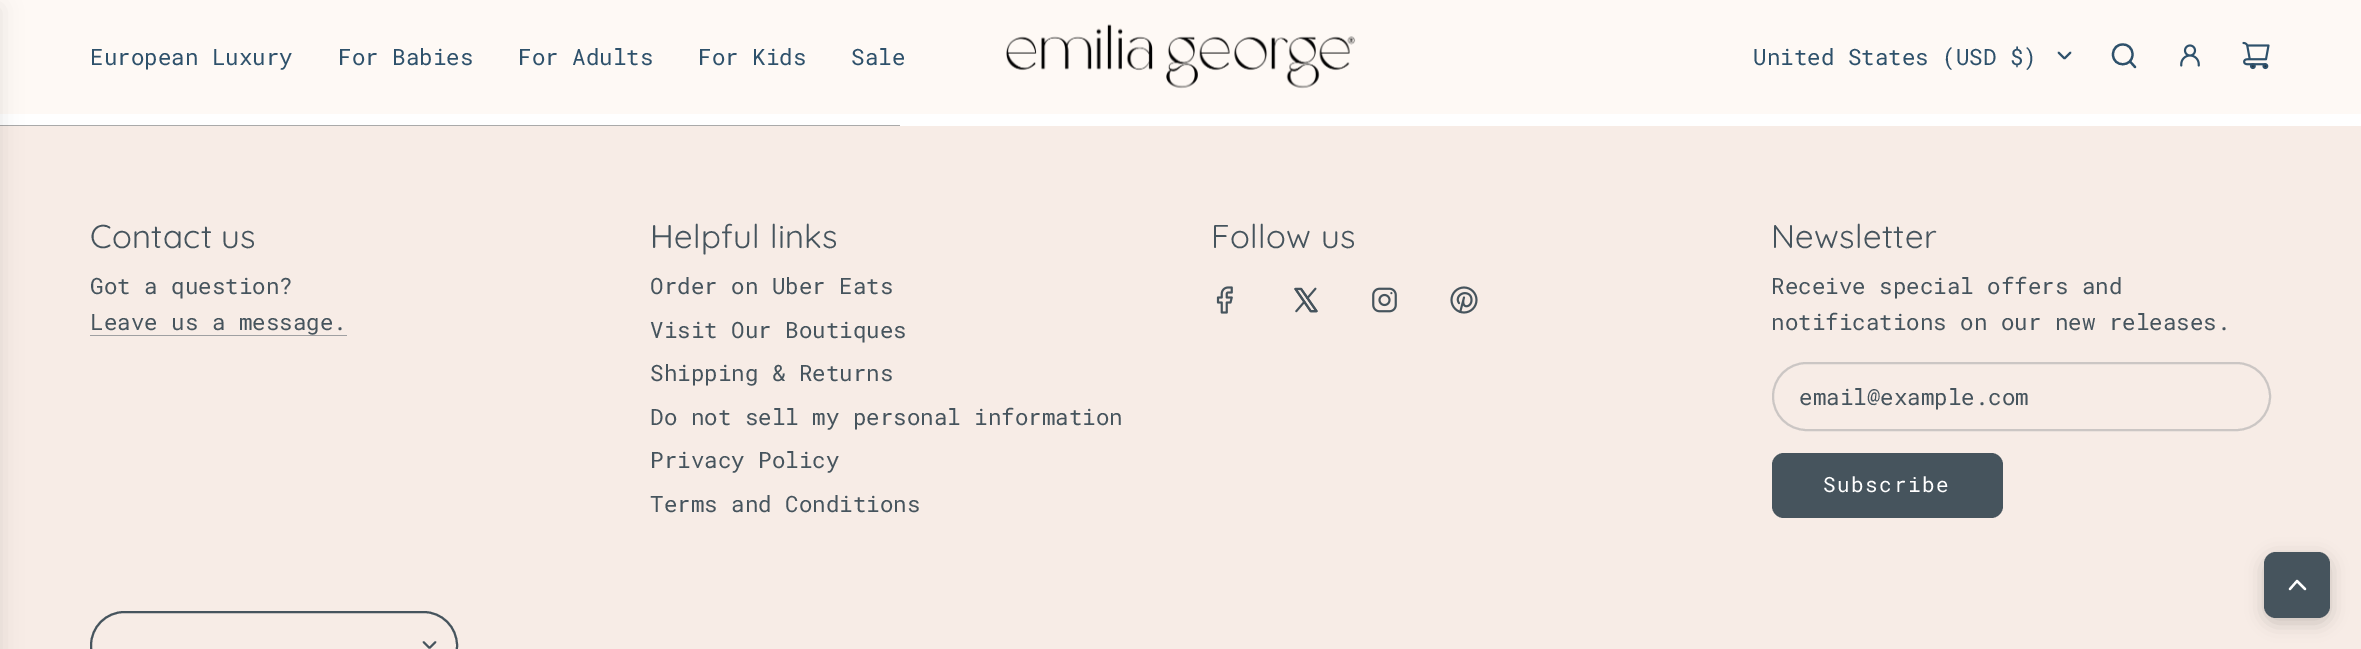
%!PS
<< /PageSize [2361 649] /PageUsesTransparency true >> setpagedevice
/mt/moveto load def
/li/lineto load def
/ct/curveto load def
/cp/closepath load def
/fl/fill load def
/st/stroke load def
/lw/setlinewidth load def
/co { dup -16 bitshift 255 div exch dup -8 bitshift 255 and 255 div exch 255 and 255 div setrgbcolor } def
/fn { [ exch dup neg 0 0 3 -1 roll 0 0 ] selectfont } def
/tx { co fn moveto show } def
/bx { co rectfill } def
/al { dup .setfillconstantalpha .setstrokeconstantalpha } def
/rr { 5 dict begin { /r /h /w /y /x } { exch def } forall
  x r add y moveto x w add y 2 copy h add r arct x w add y h add x 1 index r arct
  x y h add x y r arct x y 2 copy exch w add exch r arct closepath end } def
/sh { 12 dict begin { /a /b /q /h /w /y /x } { exch def } forall gsave /was 0 def
  9 -2 -9 { dup b mul 4 div /e exch def 1 sub .425 mul 2.718 exch exp 1 add a .99 .min exch div /now exch def
    1 1 now sub 1 was sub div sub al /was now def
    w h .min e 2 mul add 0 gt { x e sub y e sub w e 2 mul add h e 2 mul add
      q e add b .6 mul add w h .min 2 div e add .min 0 .max rr fill } if } for grestore end } def
/im { 5 dict begin { /h /w /y /x /name } { exch def } forall
  gsave x y translate w h scale
  w h 8 [w 0 0 h 0 0] name (r) file false 3 colorimage grestore end } def
0 .pushpdf14devicefilter
0 649 translate 1 -1 scale
4 setmiterlimit
0 0 2361 649 16#FFFFFF bx
0 0 2361 114 16#FEF9F5 bx
0 125 900 1 16#AAAAAA bx
0 126 2361 523 16#F7ECE6 bx
16#000000 co
-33 8 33 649 0 11 .1 sh
(media/1.raw) 1006 24 350 65 im
16#2E516B co
1.8 lw
1 setlinecap
1 setlinejoin
2058.5 52.5 mt 2064.5 58.5 li 2070.5 52.5 li st
2.2 lw
2130.5 62 mt 2135 67 li 2113 54.5 mt 2113 67.5 2132.5 67.5 2132.5 54.5 ct 2132.5 41 2113 41 2113 54.5 ct cp st
(media/2.raw) 2180 44 20 23 im
(media/3.raw) 2242 41 28 29 im
90 335 257 1 16#9FA0A2 bx
(media/4.raw) 1216 286 17 28 im
(media/5.raw) 1294 287 24 26 im
(media/6.raw) 1372 287 25 26 im
(media/7.raw) 1450 286 28 28 im
16#CBC6C4 co
2 lw
0 setlinecap
0 setlinejoin
1773 363 497 67 33.5 rr st
16#46545D co
1772 453 231 65 12 rr fl
91 612 366 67 33.5 rr st
1.8 lw
1 setlinecap
1 setlinejoin
423.5 642 mt 429.5 648 li 435.5 642 li st
16#000000 co
2264 557 66 66 12 9 .18 sh
16#46545D co
2264 552 66 66 12 rr fl
16#FFFFFF co
2.2 lw
2290 589 mt 2297 581 li 2305 589 li st
(European Luxury) 90 65 /RobotoMono-Regular 22.5 16#2E516B tx
(For Babies) 338 65 /RobotoMono-Regular 22.5 16#2E516B tx
(For Adults) 518 65 /RobotoMono-Regular 22.5 16#2E516B tx
(For Kids) 698 65 /RobotoMono-Regular 22.5 16#2E516B tx
(Sale) 851 65 /RobotoMono-Regular 22.5 16#2E516B tx
(United States \(USD $\)) 1753 65 /RobotoMono-Regular 22.5 16#2E516B tx
/Quicksand-Regular 33 fn
16#46545D co
90 248 mt .3 0 (Contact us) ashow
(Got a question?) 90 294 /RobotoMono-Regular 22.5 16#46545D tx
(Leave us a message.) 90 330 /RobotoMono-Regular 22.5 16#46545D tx
/Quicksand-Regular 33 fn
650 248 mt .3 0 (Helpful links) ashow
(Order on Uber Eats) 650 294 /RobotoMono-Regular 22.5 16#46545D tx
(Visit Our Boutiques) 650 338 /RobotoMono-Regular 22.5 16#46545D tx
(Shipping & Returns) 650 381 /RobotoMono-Regular 22.5 16#46545D tx
(Do not sell my personal information) 650 425 /RobotoMono-Regular 22.5 16#46545D tx
(Privacy Policy) 650 468 /RobotoMono-Regular 22.5 16#46545D tx
(Terms and Conditions) 650 512 /RobotoMono-Regular 22.5 16#46545D tx
/Quicksand-Regular 33 fn
1211 248 mt .3 0 (Follow us) ashow
1771 248 mt .3 0 (Newsletter) ashow
(Receive special offers and) 1771 294 /RobotoMono-Regular 22.5 16#46545D tx
(notifications on our new releases.) 1771 330 /RobotoMono-Regular 22.5 16#46545D tx
(email@example.com) 1799 405 /RobotoMono-Regular 22.5 16#46545D tx
/RobotoMono-Regular 21 fn
16#FFFFFF co
1823 492 mt 1.5 0 (Subscribe) ashow
.poppdf14devicefilter showpage
